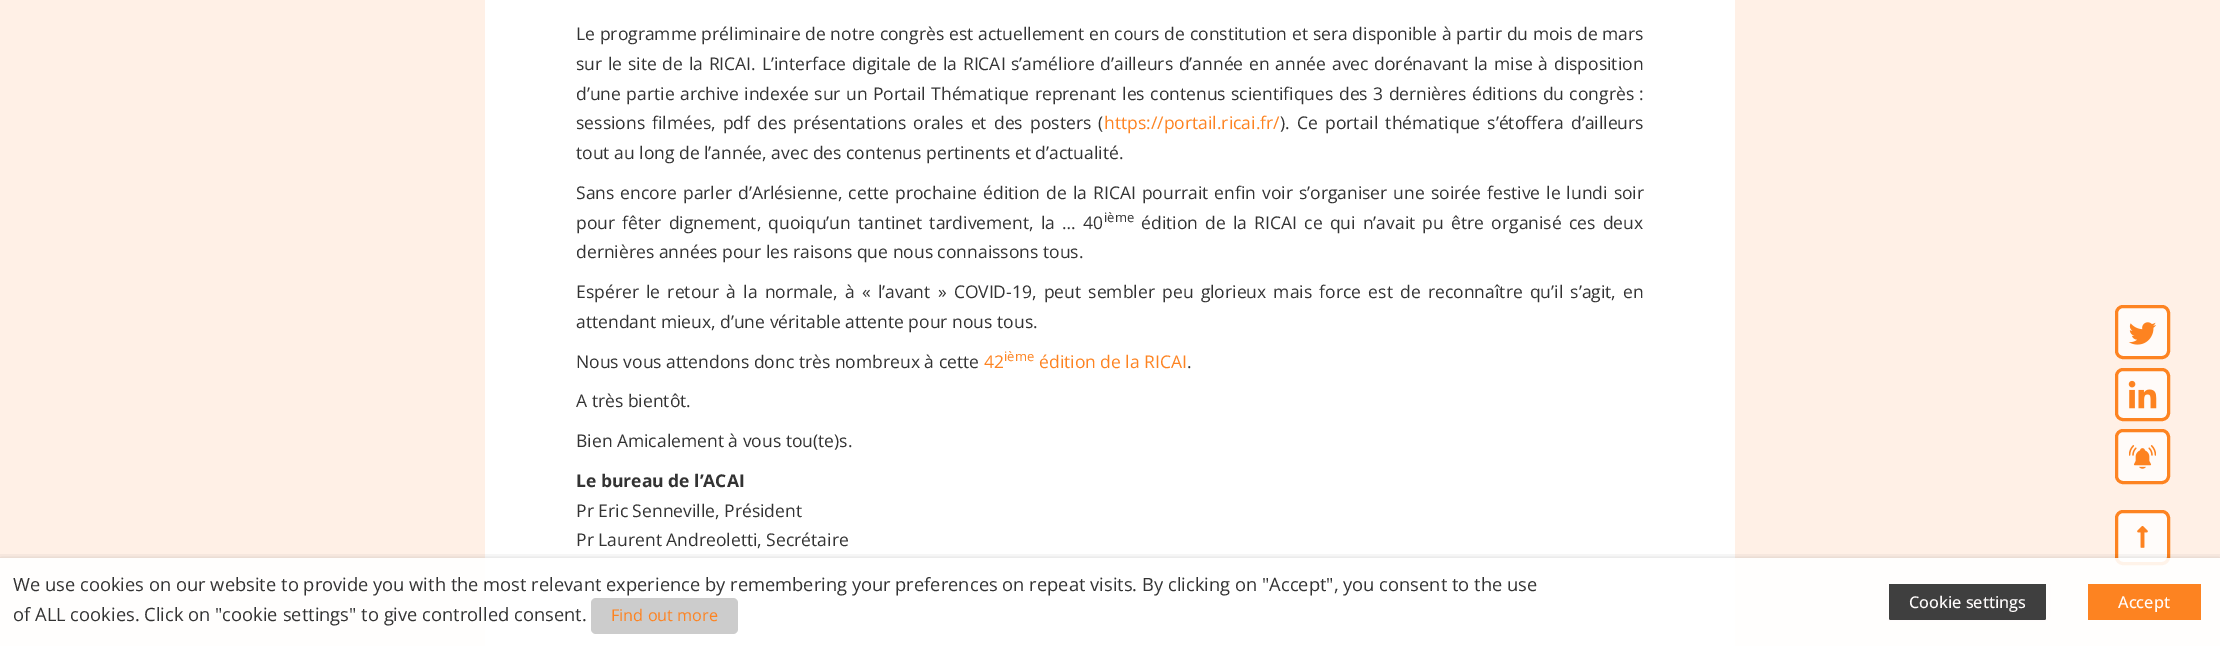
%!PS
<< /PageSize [2220 646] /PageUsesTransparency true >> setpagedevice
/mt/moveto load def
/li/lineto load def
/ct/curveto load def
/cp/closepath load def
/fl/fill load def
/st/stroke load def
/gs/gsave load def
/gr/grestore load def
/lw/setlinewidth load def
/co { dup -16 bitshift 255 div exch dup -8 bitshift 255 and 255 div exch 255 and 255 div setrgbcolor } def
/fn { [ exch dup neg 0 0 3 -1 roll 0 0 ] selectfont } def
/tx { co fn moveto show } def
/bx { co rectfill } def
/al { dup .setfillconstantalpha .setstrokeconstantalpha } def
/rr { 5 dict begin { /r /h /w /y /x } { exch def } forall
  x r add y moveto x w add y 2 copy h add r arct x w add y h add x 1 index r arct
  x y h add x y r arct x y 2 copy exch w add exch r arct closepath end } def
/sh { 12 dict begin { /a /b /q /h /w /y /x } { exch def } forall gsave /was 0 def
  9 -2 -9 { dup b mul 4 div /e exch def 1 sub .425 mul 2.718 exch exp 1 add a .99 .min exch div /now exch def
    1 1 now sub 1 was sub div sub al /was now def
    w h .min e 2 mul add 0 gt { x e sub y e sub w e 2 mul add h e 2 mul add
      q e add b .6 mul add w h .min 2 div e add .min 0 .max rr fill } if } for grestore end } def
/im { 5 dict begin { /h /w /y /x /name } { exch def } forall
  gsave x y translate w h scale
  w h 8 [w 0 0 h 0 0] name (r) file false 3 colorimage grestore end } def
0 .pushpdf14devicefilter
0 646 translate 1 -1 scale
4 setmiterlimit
0 0 2220 646 16#FFF0E6 bx
485 0 1250 646 16#FFFFFF bx
16#FFFBF9 co
2116.5 306.5 52 51 6.5 rr gs fl gr
16#FD8321 co
3 lw
st
(media/1.raw) 2128 322 28 23 im
16#FFFBF9 co
2116.5 369.5 52 50 6.5 rr gs fl gr
16#FD8321 co
st
(media/2.raw) 2128 380 29 29 im
16#FFFBF9 co
2116.5 430.5 52 52 6.5 rr gs fl gr
16#FD8321 co
st
(media/3.raw) 2129 445 27 24 im
16#FFFCFA co
2116.5 511.5 52 52 6.5 rr gs fl gr
16#FD8321 co
st
(media/4.raw) 2137 526 11 22 im
gs
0 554 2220 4 rectclip
16#000000 co
0 564 2220 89 0 6 .5 sh
gr
0.9 al
0 558 2220 88 16#FFFFFF bx
1 al
16#CCCCCC co
591 598 147 36 5 rr fl
16#3F3F3F co
1890 584 mt 2045 584 li 2046 584 2046 584 2046 585 ct 2046 616 li 2046 618 2046 620 2045 620 ct 1890 620 li 1889 620 1889 618 1889 616 ct 1889 585 li 1889 584 1889 584 1890 584 ct cp fl
16#FFFCFC co
1 lw
1885.5 580.5 164 40 4.5 rr st
2088 584 113 36 16#FD8321 bx
/OpenSans-Regular 17.5 fn
16#333333 co
576 40 mt .2 0 32 (Le programme préliminaire de notre congrès est actuellement en cours de constitution et sera disponible à partir du mois de mars) widthshow
576 70 mt 1.2 0 32 (sur le site de la RICAI. L’interface digitale de la RICAI s’améliore d’ailleurs d’année en année avec dorénavant la mise à disposition) widthshow
576 100 mt .9 0 32 (d’une partie archive indexée sur un Portail Thématique reprenant les contenus scientifiques des 3 dernières éditions du congrès :) widthshow
576 129 mt 2.7 0 32 (sessions filmées, pdf des présentations orales et des posters \() widthshow
(https://portail.ricai.fr/) 1104 129 /OpenSans-Regular 17.5 16#FD8321 tx
16#333333 co
1280 129 mt 2.7 0 32 (\). Ce portail thématique s’étoffera d’ailleurs) widthshow
(tout au long de l’année, avec des contenus pertinents et d’actualité.) 576 159 /OpenSans-Regular 17.5 16#333333 tx
576 199 mt 1.5 0 32 (Sans encore parler d’Arlésienne, cette prochaine édition de la RICAI pourrait enfin voir s’organiser une soirée festive le lundi soir) widthshow
576 229 mt 2.7 0 32 (pour fêter dignement, quoiqu’un tantinet tardivement, la … 40) widthshow
(ième) 1104 222 /OpenSans-Regular 13 16#333333 tx
/OpenSans-Regular 17.5 fn
1141 229 mt 2.7 0 32 (édition de la RICAI ce qui n’avait pu être organisé ces deux) widthshow
(dernières années pour les raisons que nous connaissons tous.) 576 258 /OpenSans-Regular 17.5 16#333333 tx
576 298 mt 2.7 0 32 (Espérer le retour à la normale, à « l’avant » COVID-19, peut sembler peu glorieux mais force est de reconnaître qu’il s’agit, en) widthshow
(attendant mieux, d’une véritable attente pour nous tous.) 576 328 /OpenSans-Regular 17.5 16#333333 tx
(Nous vous attendons donc très nombreux à cette) 576 368 /OpenSans-Regular 17.5 16#333333 tx
(42) 984 368 /OpenSans-Regular 17.5 16#FD8321 tx
(ième) 1004 361 /OpenSans-Regular 13 16#FD8321 tx
(édition de la RICAI) 1039 368 /OpenSans-Regular 17.5 16#FD8321 tx
(.) 1187 368 /OpenSans-Regular 17.5 16#333333 tx
(A très bientôt.) 576 407 /OpenSans-Regular 17.5 16#333333 tx
(Bien Amicalement à vous tou\(te\)s.) 576 447 /OpenSans-Regular 17.5 16#333333 tx
(Le bureau de l’ACAI) 576 487 /OpenSans-Bold 17.5 16#333333 tx
(Pr Eric Senneville, Président) 576 517 /OpenSans-Regular 17.5 16#333333 tx
(Pr Laurent Andreoletti, Secrétaire) 576 546 /OpenSans-Regular 17.5 16#333333 tx
(We use cookies on our website to provide you with the most relevant experience by remembering your preferences on repeat visits. By clicking on "Accept", you consent to the use) 13 591 /OpenSans-Regular 18.33 16#333333 tx
(of ALL cookies. Click on "cookie settings" to give controlled consent.) 13 621 /OpenSans-Regular 18.33 16#333333 tx
(Find out more) 611 621 /OpenSans-Regular 16.25 16#FD8321 tx
(Cookie settings) 1909 608 /OpenSans-Medium 16.25 16#FFFCFC tx
(Accept) 2118 608 /OpenSans-Medium 16.25 16#FFFCFC tx
.poppdf14devicefilter showpage
